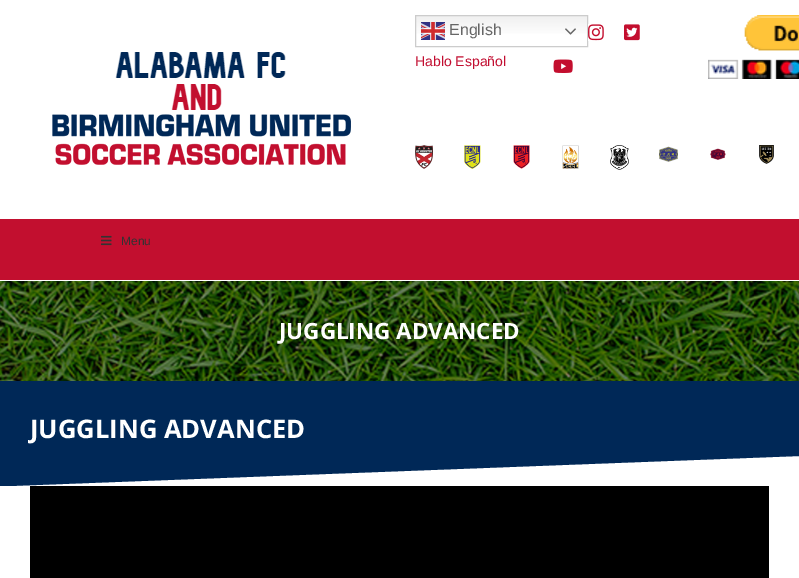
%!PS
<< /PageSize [799 578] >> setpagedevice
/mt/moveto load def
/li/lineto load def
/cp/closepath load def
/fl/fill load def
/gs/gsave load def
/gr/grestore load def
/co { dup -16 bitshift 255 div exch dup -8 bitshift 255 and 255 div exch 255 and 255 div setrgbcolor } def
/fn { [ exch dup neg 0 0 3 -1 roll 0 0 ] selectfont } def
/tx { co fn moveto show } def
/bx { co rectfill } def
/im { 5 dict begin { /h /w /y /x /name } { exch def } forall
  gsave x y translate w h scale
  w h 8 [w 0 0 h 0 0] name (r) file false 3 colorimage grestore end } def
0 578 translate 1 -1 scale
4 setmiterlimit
0 0 799 578 16#FFFFFF bx
gs 416 16 mt 587 16 li 587 34 li 416 34 li cp clip newpath
<< /ShadingType 2 /ColorSpace /DeviceRGB /Coords [502 15 502 47] /Extend [true true] /Function << /FunctionType 3 /Domain [0 1] /Functions [<< /FunctionType 2 /Domain [0 1] /C0 [.937 .937 .937] /C1 [1 1 1] /N 1 >> << /FunctionType 2 /Domain [0 1] /C0 [1 1 1] /C1 [1 1 1] /N 1 >>] /Bounds [.7] /Encode [0 1 0 1] >> >> shfill gr
16#CCCCCC co
415.5 15.5 172 31 rectstroke
(media/1.raw) 421 22 24 18 im
(media/2.raw) 565 28 11 7 im
(media/3.raw) 588 24 16 17 im
(media/4.raw) 624 24 16 17 im
(media/5.raw) 553 59 20 14 im
(media/6.raw) 708 15 91 64 im
(media/7.raw) 415 145 18 24 im
(media/8.raw) 464 145 17 24 im
(media/9.raw) 513 145 17 24 im
(media/10.raw) 562 145 17 24 im
(media/11.raw) 610 145 19 25 im
(media/12.raw) 659 146 19 16 im
(media/13.raw) 710 148 16 12 im
(media/14.raw) 759 145 15 19 im
(media/15.raw) 52 52 299 113 im
0 219 799 61 16#C20F2F bx
(media/16.raw) 101 235 11 11 im
(media/17.raw) 0 281 799 100 im
16#002857 co
0 381 mt 0 486 li 10 486 li 799 456 li 799 381 li cp fl
30 486 739 92 16#000000 bx
(English) 449 35 /LiberationSans-Regular 16 16#666666 tx
(Hablo Español) 415 66 /LiberationSans-Regular 14 16#C20D30 tx
(Menu) 121 245 /LiberationSans-Regular 12 16#333333 tx
(JUGGLING ADVANCED) 279 339 /OpenSans-Bold 22.4 16#FFFFFF tx
(JUGGLING ADVANCED) 30 438 /OpenSans-Bold 25.6 16#FFFFFF tx
showpage
